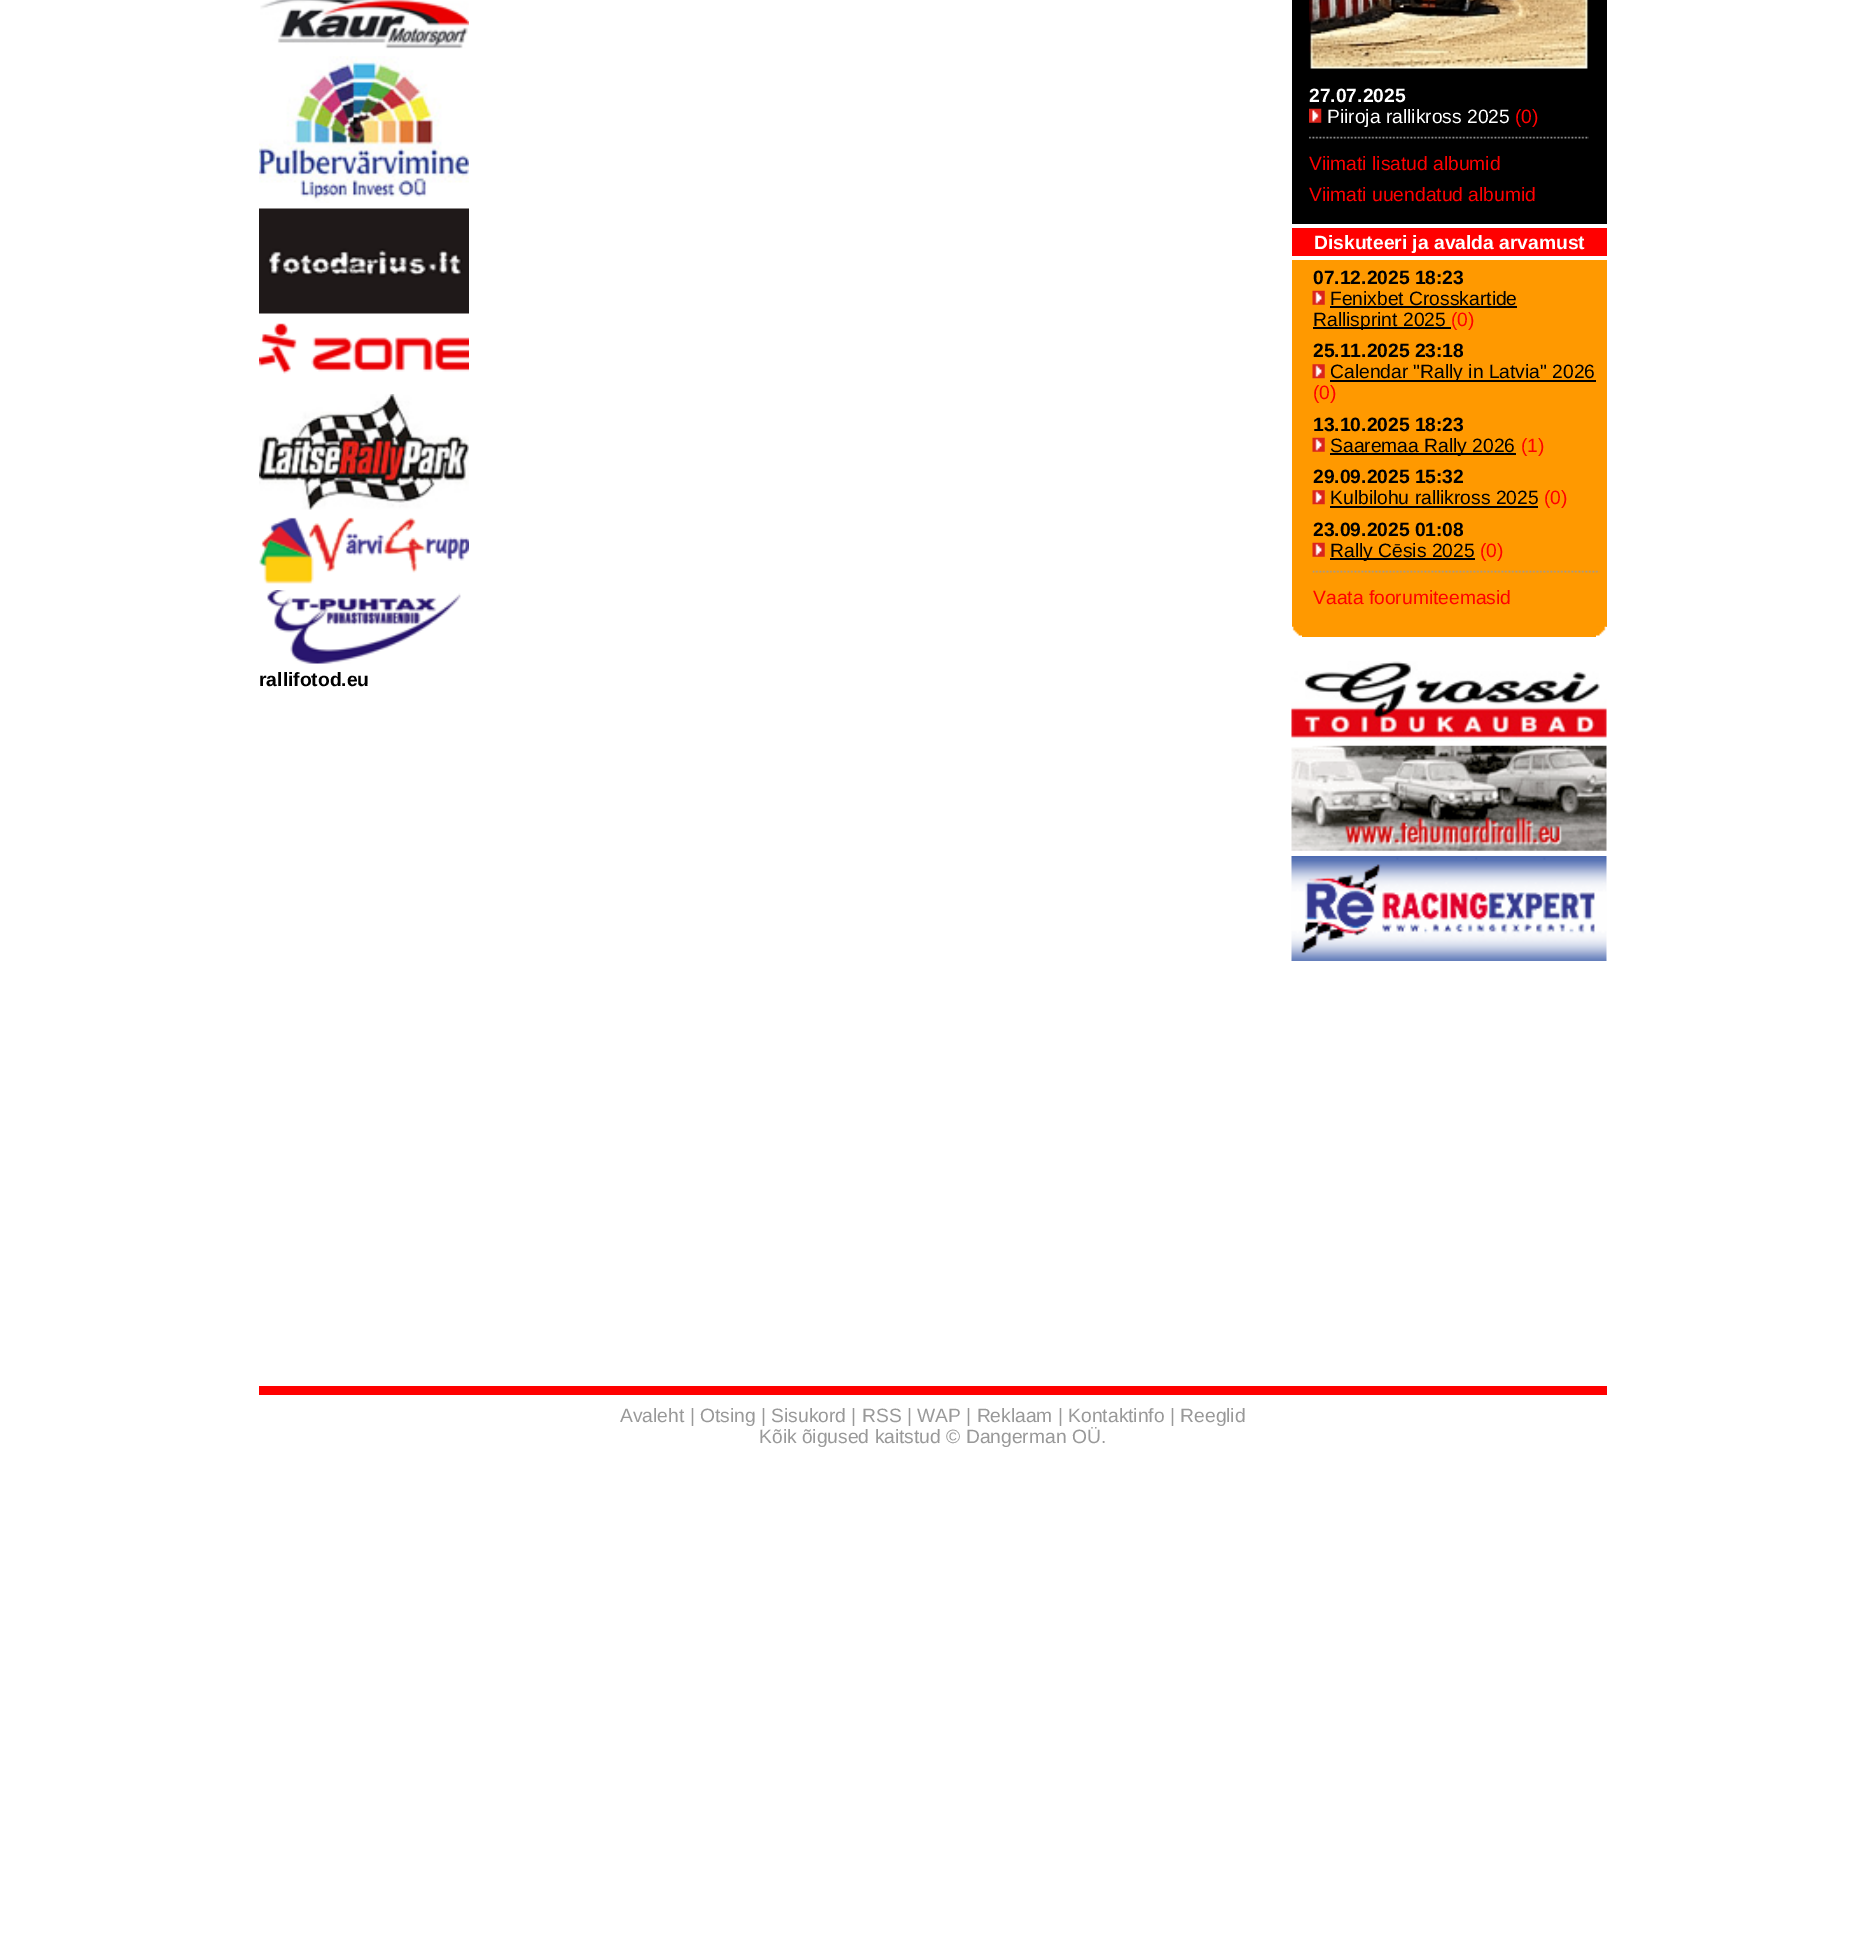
%!PS
<< /PageSize [1865 1945] >> setpagedevice
/co { dup -16 bitshift 255 div exch dup -8 bitshift 255 and 255 div exch 255 and 255 div setrgbcolor } def
/fn { [ exch dup neg 0 0 3 -1 roll 0 0 ] selectfont } def
/tx { co fn moveto show } def
/bx { co rectfill } def
/im { 5 dict begin { /h /w /y /x /name } { exch def } forall
  gsave x y translate w h scale
  w h 8 [w 0 0 h 0 0] name (r) file false 3 colorimage grestore end } def
0 1945 translate 1 -1 scale
4 setmiterlimit
0 0 1865 1945 16#FFFFFF bx
1292 0 315 224 16#000000 bx
(media/1.raw) 1309 0 280 69 im
(media/2.raw) 1309 108 13 15 im
(media/3.raw) 1309 136 280 3 im
1292 260 315 367 16#FF9900 bx
1292 228 315 28 16#FF0000 bx
(media/4.raw) 1312 290 13 15 im
1330 306 187 2 16#000000 bx
1313 327 138 2 16#000000 bx
(media/5.raw) 1312 364 13 15 im
1330 380 266 2 16#000000 bx
(media/4.raw) 1312 437 13 15 im
1330 453 186 2 16#000000 bx
(media/5.raw) 1312 490 13 15 im
1330 506 208 2 16#000000 bx
(media/4.raw) 1312 542 13 15 im
1330 558 145 2 16#000000 bx
(media/6.raw) 1312 570 288 3 im
(media/7.raw) 1292 626 10 10 im
1302 627 294 10 16#FF9900 bx
(media/8.raw) 1596 626 11 10 im
(media/9.raw) 1291 661 316 80 im
(media/10.raw) 1291 745 316 106 im
(media/11.raw) 1291 856 316 105 im
(media/12.raw) 260 0 209 49 im
(media/13.raw) 259 56 210 147 im
(media/14.raw) 259 208 210 106 im
(media/15.raw) 259 323 210 51 im
(media/16.raw) 259 394 210 116 im
(media/17.raw) 259 517 210 67 im
(media/18.raw) 267 590 194 74 im
259 1386 1348 9 16#FF0000 bx
(27.07.2025) 1309 102 /LiberationSans-Bold 19.25 16#FFFFFF tx
(Piiroja rallikross 2025) 1327 123 /LiberationSans-Regular 19.25 16#FFFFFF tx
(\(0\)) 1515 123 /LiberationSans-Regular 19.25 16#FF0000 tx
(Viimati lisatud albumid) 1309 170 /LiberationSans-Regular 19.25 16#FF0000 tx
(Viimati uuendatud albumid) 1309 201 /LiberationSans-Regular 19.25 16#FF0000 tx
(Diskuteeri ja avalda arvamust) 1314 249 /LiberationSans-Bold 19.25 16#FFFFFF tx
(07.12.2025 18:23) 1313 284 /LiberationSans-Bold 19.25 16#000000 tx
(Fenixbet Crosskartide) 1330 305 /LiberationSans-Regular 19.25 16#000000 tx
(Rallisprint 2025) 1313 326 /LiberationSans-Regular 19.25 16#000000 tx
(\(0\)) 1451 326 /LiberationSans-Regular 19.25 16#FF0000 tx
(25.11.2025 23:18) 1313 357 /LiberationSans-Bold 19.25 16#000000 tx
(Calendar "Rally in Latvia" 2026) 1330 378 /LiberationSans-Regular 19.25 16#000000 tx
(\(0\)) 1313 399 /LiberationSans-Regular 19.25 16#FF0000 tx
(13.10.2025 18:23) 1313 431 /LiberationSans-Bold 19.25 16#000000 tx
(Saaremaa Rally 2026) 1330 452 /LiberationSans-Regular 19.25 16#000000 tx
(\(1\)) 1521 452 /LiberationSans-Regular 19.25 16#FF0000 tx
(29.09.2025 15:32) 1313 483 /LiberationSans-Bold 19.25 16#000000 tx
(Kulbilohu rallikross 2025) 1330 504 /LiberationSans-Regular 19.25 16#000000 tx
(\(0\)) 1544 504 /LiberationSans-Regular 19.25 16#FF0000 tx
(23.09.2025 01:08) 1313 536 /LiberationSans-Bold 19.25 16#000000 tx
(Rally Cēsis 2025) 1330 557 /LiberationSans-Regular 19.25 16#000000 tx
(\(0\)) 1480 557 /LiberationSans-Regular 19.25 16#FF0000 tx
(Vaata foorumiteemasid) 1313 604 /LiberationSans-Regular 19.25 16#FF0000 tx
(rallifotod.eu) 259 686 /LiberationSans-Bold 19.25 16#000000 tx
(Avaleht | Otsing | Sisukord | RSS | WAP | Reklaam | Kontaktinfo | Reeglid) 620 1422 /LiberationSans-Regular 19.25 16#999999 tx
(Kõik õigused kaitstud © Dangerman OÜ.) 759 1443 /LiberationSans-Regular 19.25 16#999999 tx
showpage
